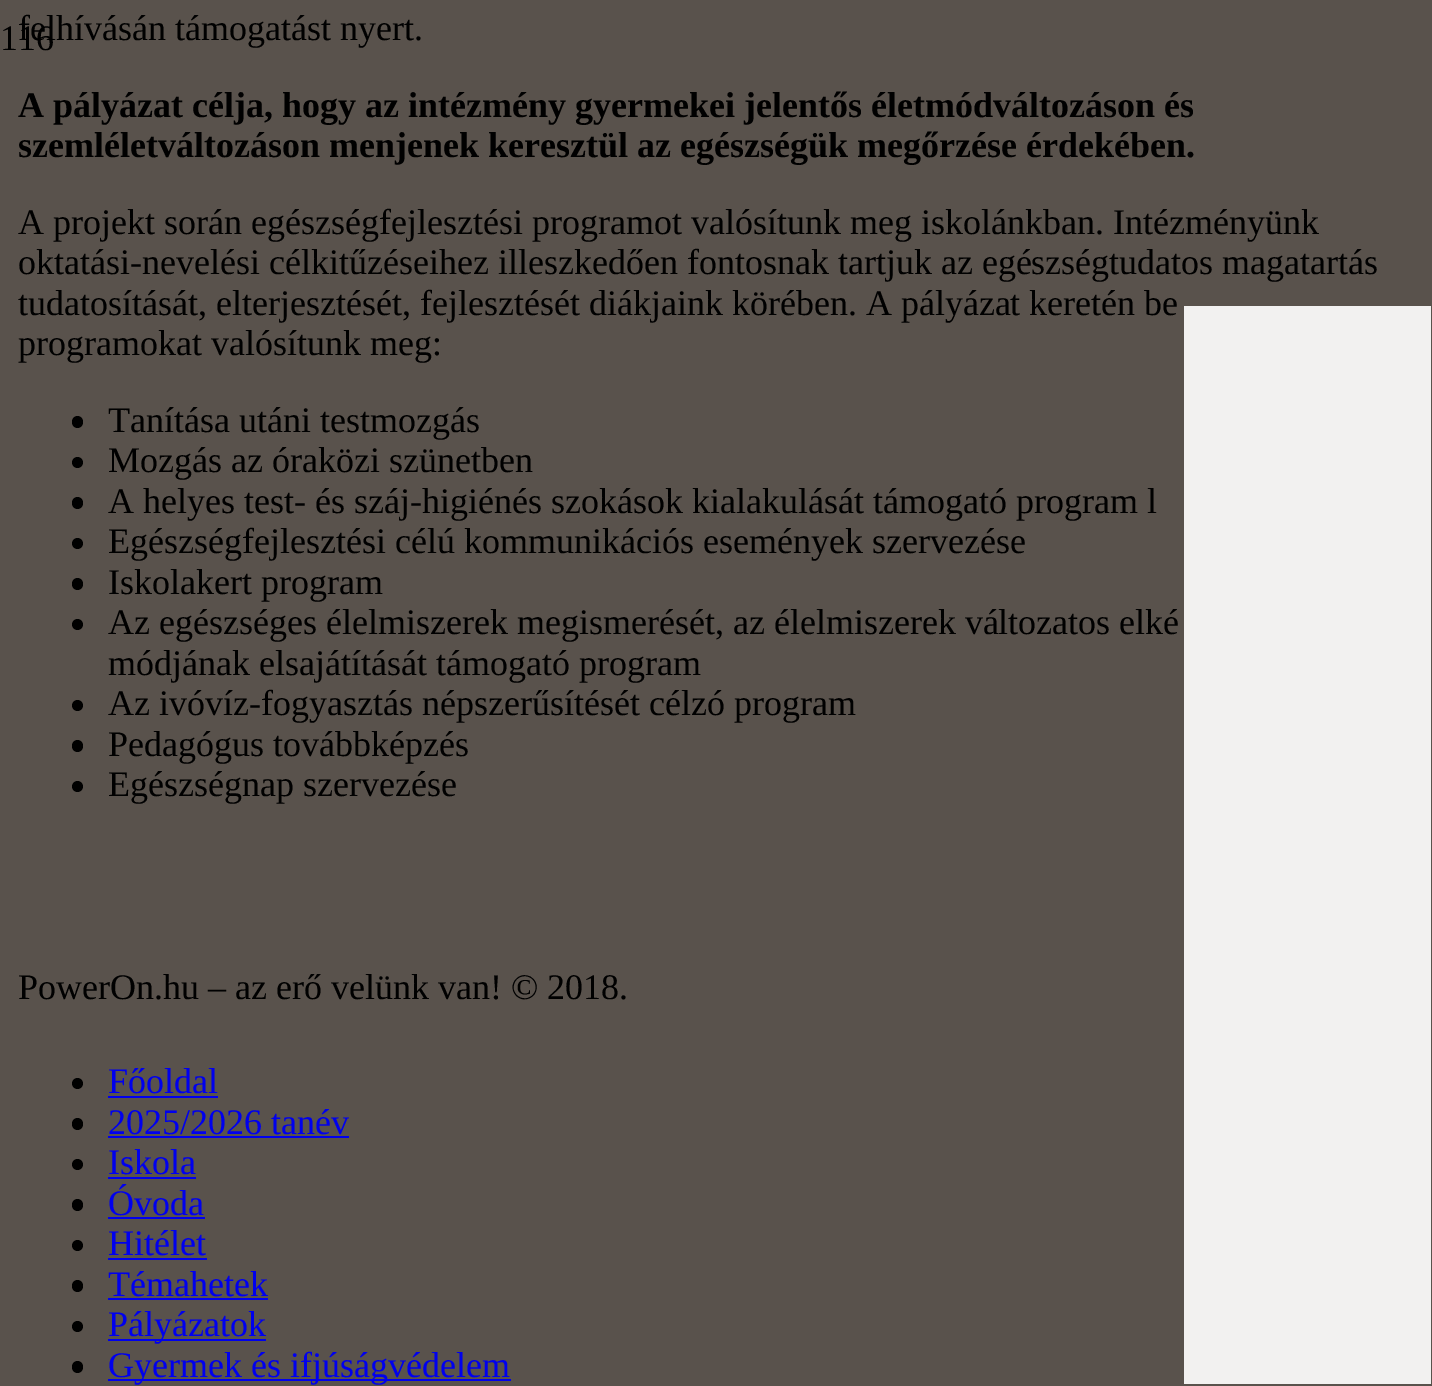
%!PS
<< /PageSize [1432 1386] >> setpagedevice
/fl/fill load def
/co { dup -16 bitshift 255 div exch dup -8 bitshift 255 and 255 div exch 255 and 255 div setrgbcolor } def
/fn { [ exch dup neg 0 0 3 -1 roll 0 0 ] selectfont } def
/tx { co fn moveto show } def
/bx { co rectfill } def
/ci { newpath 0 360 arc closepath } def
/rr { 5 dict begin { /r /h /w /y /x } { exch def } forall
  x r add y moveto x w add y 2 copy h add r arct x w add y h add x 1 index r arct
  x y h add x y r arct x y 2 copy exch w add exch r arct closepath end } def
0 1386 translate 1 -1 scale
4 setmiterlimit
0 0 1432 1386 16#59524C bx
16#000000 co
72 416 11 12 5.5 rr fl
77.5 462.5 5.5 ci fl
72 497 11 12 5.5 rr fl
77.5 543.5 5.5 ci fl
72 578 11 12 5.5 rr fl
77.5 624.5 5.5 ci fl
77.5 705.5 5.5 ci fl
72 740 11 12 5.5 rr fl
77.5 786.5 5.5 ci fl
77.5 1083.5 5.5 ci fl
108 1096 110 2 16#0000EE bx
16#000000 co
72 1118 11 12 5.5 rr fl
108 1136 241 2 16#0000EE bx
16#000000 co
77.5 1164.5 5.5 ci fl
108 1177 88 2 16#0000EE bx
16#000000 co
72 1199 11 12 5.5 rr fl
108 1217 97 2 16#0000EE bx
16#000000 co
77.5 1245.5 5.5 ci fl
108 1258 99 2 16#0000EE bx
16#000000 co
72 1280 11 12 5.5 rr fl
108 1298 160 2 16#0000EE bx
16#000000 co
77.5 1326.5 5.5 ci fl
108 1339 158 2 16#0000EE bx
16#000000 co
72 1361 11 12 5.5 rr fl
108 1379 403 2 16#0000EE bx
1184 306 247 1078 16#F2F1F0 bx
(felhívásán támogatást nyert.) 18 40 /LiberationSerif-Regular 36 16#000000 tx
(A pályázat célja, hogy az intézmény gyermekei jelentős életmódváltozáson és) 18 117 /LiberationSerif-Bold 36 16#000000 tx
(szemléletváltozáson menjenek keresztül az egészségük megőrzése érdekében.) 18 157 /LiberationSerif-Bold 36 16#000000 tx
(A projekt során egészségfejlesztési programot valósítunk meg iskolánkban. Intézményünk) 18 234 /LiberationSerif-Regular 36 16#000000 tx
(oktatási-nevelési célkitűzéseihez illeszkedően fontosnak tartjuk az egészségtudatos magatartás) 18 274 /LiberationSerif-Regular 36 16#000000 tx
(tudatosítását, elterjesztését, fejlesztését diákjaink körében. A pályázat keretén be) 18 315 /LiberationSerif-Regular 36 16#000000 tx
(programokat valósítunk meg:) 18 355 /LiberationSerif-Regular 36 16#000000 tx
(Tanítása utáni testmozgás) 108 432 /LiberationSerif-Regular 36 16#000000 tx
(Mozgás az óraközi szünetben) 108 472 /LiberationSerif-Regular 36 16#000000 tx
(A helyes test- és száj-higiénés szokások kialakulását támogató program l) 108 513 /LiberationSerif-Regular 36 16#000000 tx
(Egészségfejlesztési célú kommunikációs események szervezése) 108 553 /LiberationSerif-Regular 36 16#000000 tx
(Iskolakert program) 108 594 /LiberationSerif-Regular 36 16#000000 tx
(Az egészséges élelmiszerek megismerését, az élelmiszerek változatos elké) 108 634 /LiberationSerif-Regular 36 16#000000 tx
(módjának elsajátítását támogató program) 108 675 /LiberationSerif-Regular 36 16#000000 tx
(Az ivóvíz-fogyasztás népszerűsítését célzó program) 108 715 /LiberationSerif-Regular 36 16#000000 tx
(Pedagógus továbbképzés) 108 756 /LiberationSerif-Regular 36 16#000000 tx
(Egészségnap szervezése) 108 796 /LiberationSerif-Regular 36 16#000000 tx
(116) 0 50 /LiberationSerif-Regular 36 16#000000 tx
(PowerOn.hu – az erő velünk van! © 2018.) 18 999 /LiberationSerif-Regular 36 16#000000 tx
(Főoldal) 108 1093 /LiberationSerif-Regular 36 16#0000EE tx
(2025/2026 tanév) 108 1134 /LiberationSerif-Regular 36 16#0000EE tx
(Iskola) 108 1174 /LiberationSerif-Regular 36 16#0000EE tx
(Óvoda) 108 1215 /LiberationSerif-Regular 36 16#0000EE tx
(Hitélet) 108 1255 /LiberationSerif-Regular 36 16#0000EE tx
(Témahetek) 108 1296 /LiberationSerif-Regular 36 16#0000EE tx
(Pályázatok) 108 1336 /LiberationSerif-Regular 36 16#0000EE tx
(Gyermek és ifjúságvédelem) 108 1377 /LiberationSerif-Regular 36 16#0000EE tx
showpage
